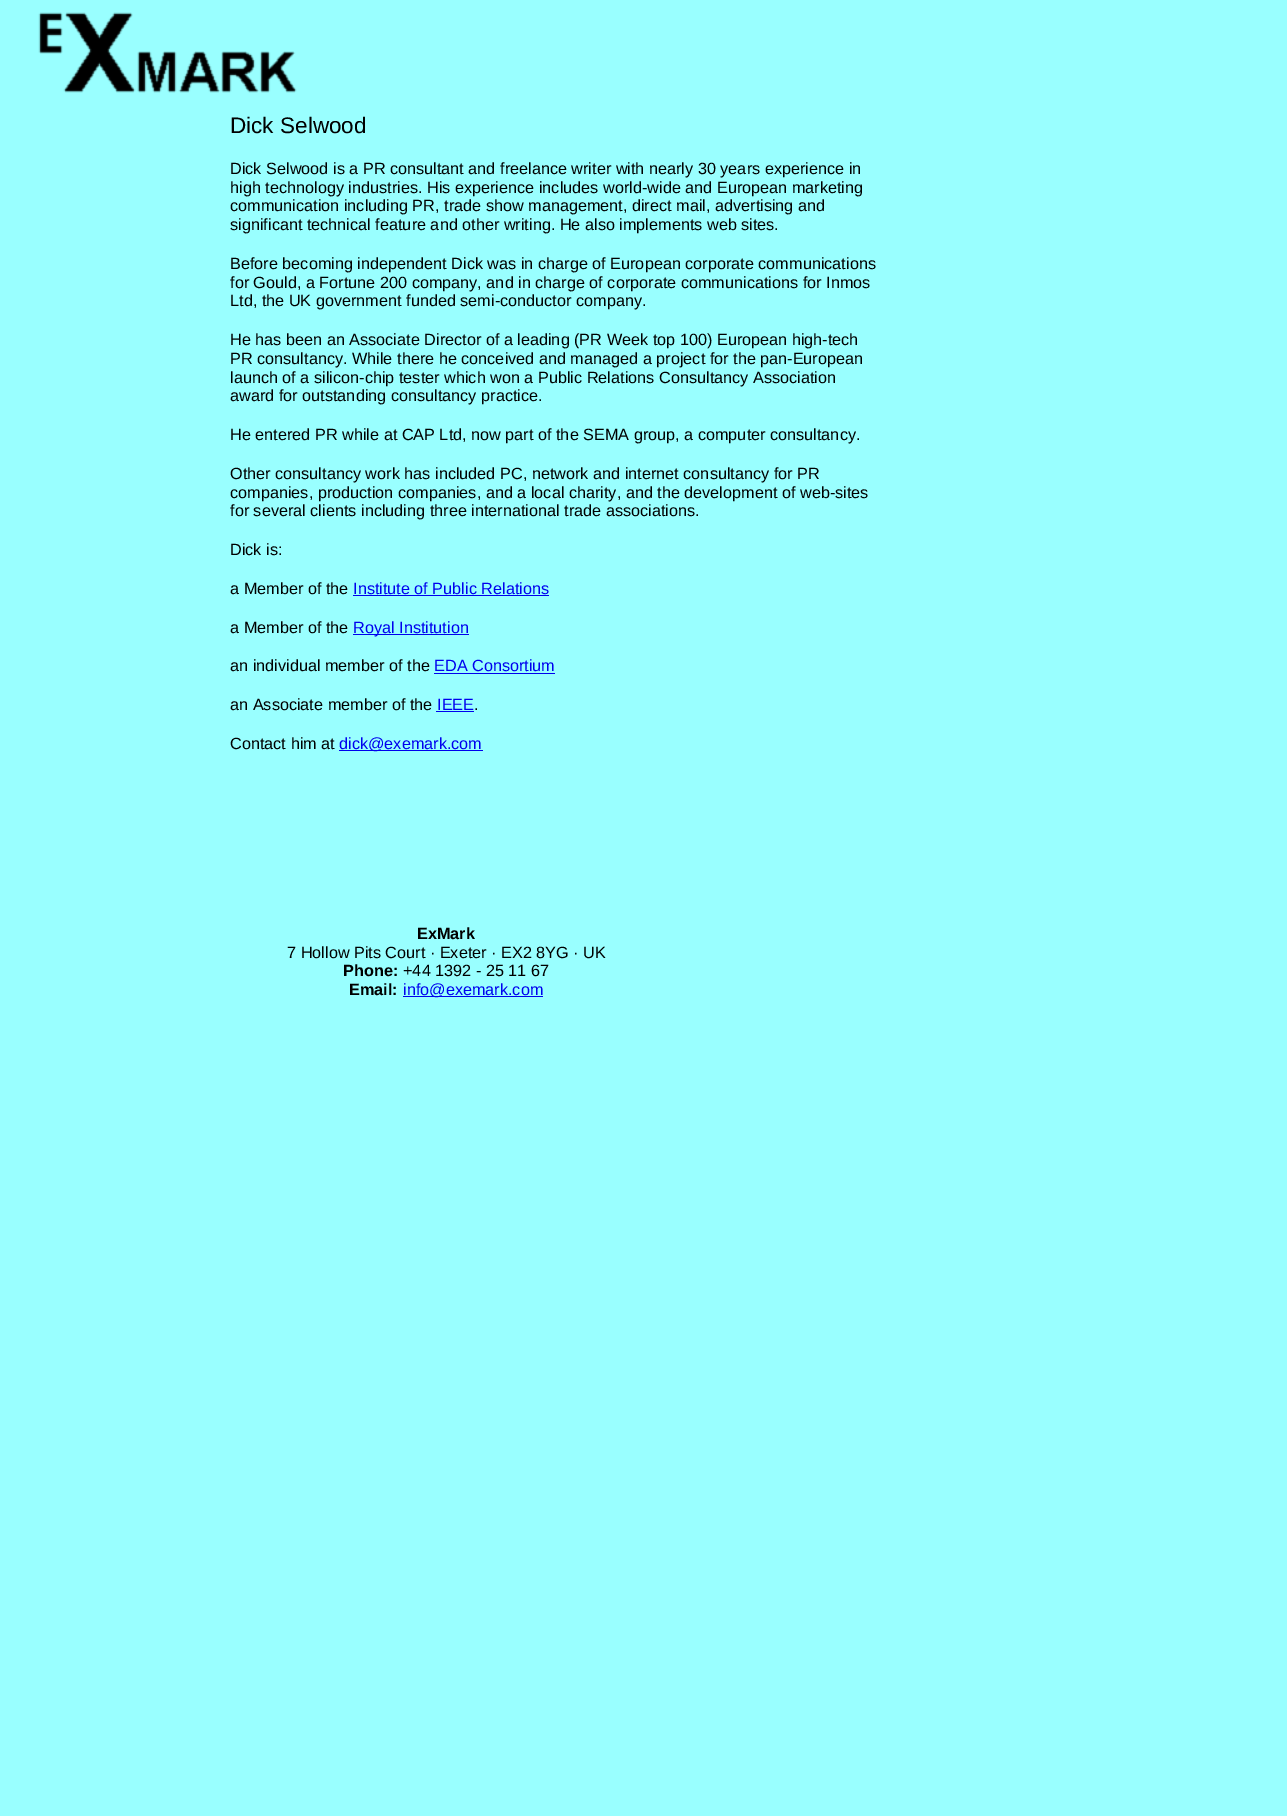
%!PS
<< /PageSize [1287 1816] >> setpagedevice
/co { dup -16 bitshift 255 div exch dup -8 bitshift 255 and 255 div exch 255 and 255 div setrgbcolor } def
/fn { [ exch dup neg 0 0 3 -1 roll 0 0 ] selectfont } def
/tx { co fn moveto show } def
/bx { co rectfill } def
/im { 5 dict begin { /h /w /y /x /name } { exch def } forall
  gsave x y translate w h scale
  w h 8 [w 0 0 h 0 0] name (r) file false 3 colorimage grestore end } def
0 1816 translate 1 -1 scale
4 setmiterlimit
0 0 1287 1816 16#99FFFF bx
(media/1.raw) 38 12 259 81 im
353 595 196 1 16#0000EE bx
353 634 116 1 16#0000EE bx
434 673 121 1 16#0000EE bx
436 711 38 1 16#0000EE bx
339 750 144 1 16#0000EE bx
403 996 140 1 16#0000EE bx
(Dick Selwood) 230 133 /LiberationSans-Regular 22.5 16#000000 tx
(Dick Selwood is a PR consultant and freelance writer with nearly 30 years experience in) 230 174 /LiberationSans-Regular 16.25 16#000000 tx
(high technology industries. His experience includes world-wide and European marketing) 230 193 /LiberationSans-Regular 16.25 16#000000 tx
(communication including PR, trade show management, direct mail, advertising and) 230 211 /LiberationSans-Regular 16.25 16#000000 tx
(significant technical feature and other writing. He also implements web sites.) 230 230 /LiberationSans-Regular 16.25 16#000000 tx
(Before becoming independent Dick was in charge of European corporate communications) 230 269 /LiberationSans-Regular 16.25 16#000000 tx
(for Gould, a Fortune 200 company, and in charge of corporate communications for Inmos) 230 288 /LiberationSans-Regular 16.25 16#000000 tx
(Ltd, the UK government funded semi-conductor company.) 230 306 /LiberationSans-Regular 16.25 16#000000 tx
(He has been an Associate Director of a leading \(PR Week top 100\) European high-tech) 230 345 /LiberationSans-Regular 16.25 16#000000 tx
(PR consultancy. While there he conceived and managed a project for the pan-European) 230 364 /LiberationSans-Regular 16.25 16#000000 tx
(launch of a silicon-chip tester which won a Public Relations Consultancy Association) 230 383 /LiberationSans-Regular 16.25 16#000000 tx
(award for outstanding consultancy practice.) 230 401 /LiberationSans-Regular 16.25 16#000000 tx
(He entered PR while at CAP Ltd, now part of the SEMA group, a computer consultancy.) 230 440 /LiberationSans-Regular 16.25 16#000000 tx
(Other consultancy work has included PC, network and internet consultancy for PR) 230 479 /LiberationSans-Regular 16.25 16#000000 tx
(companies, production companies, and a local charity, and the development of web-sites) 230 498 /LiberationSans-Regular 16.25 16#000000 tx
(for several clients including three international trade associations.) 230 516 /LiberationSans-Regular 16.25 16#000000 tx
(Dick is:) 230 555 /LiberationSans-Regular 16.25 16#000000 tx
(a Member of the) 230 594 /LiberationSans-Regular 16.25 16#000000 tx
(Institute of Public Relations) 353 594 /LiberationSans-Regular 16.25 16#0000EE tx
(a Member of the) 230 633 /LiberationSans-Regular 16.25 16#000000 tx
(Royal Institution) 353 633 /LiberationSans-Regular 16.25 16#0000EE tx
(an individual member of the) 230 671 /LiberationSans-Regular 16.25 16#000000 tx
(EDA Consortium) 434 671 /LiberationSans-Regular 16.25 16#0000EE tx
(an Associate member of the) 230 710 /LiberationSans-Regular 16.25 16#000000 tx
(IEEE) 437 710 /LiberationSans-Regular 16.25 16#0000EE tx
(.) 474 710 /LiberationSans-Regular 16.25 16#000000 tx
(Contact him at) 230 749 /LiberationSans-Regular 16.25 16#000000 tx
(dick@exemark.com) 339 749 /LiberationSans-Regular 16.25 16#0000EE tx
(ExMark) 417 939 /LiberationSans-Bold 16.25 16#000000 tx
(7 Hollow Pits Court · Exeter · EX2 8YG · UK) 287 958 /LiberationSans-Regular 16.25 16#000000 tx
(Phone:) 343 976 /LiberationSans-Bold 16.25 16#000000 tx
(+44 1392 - 25 11 67) 403 976 /LiberationSans-Regular 16.25 16#000000 tx
(Email:) 349 995 /LiberationSans-Bold 16.25 16#000000 tx
(info@exemark.com) 403 995 /LiberationSans-Regular 16.25 16#0000EE tx
showpage
